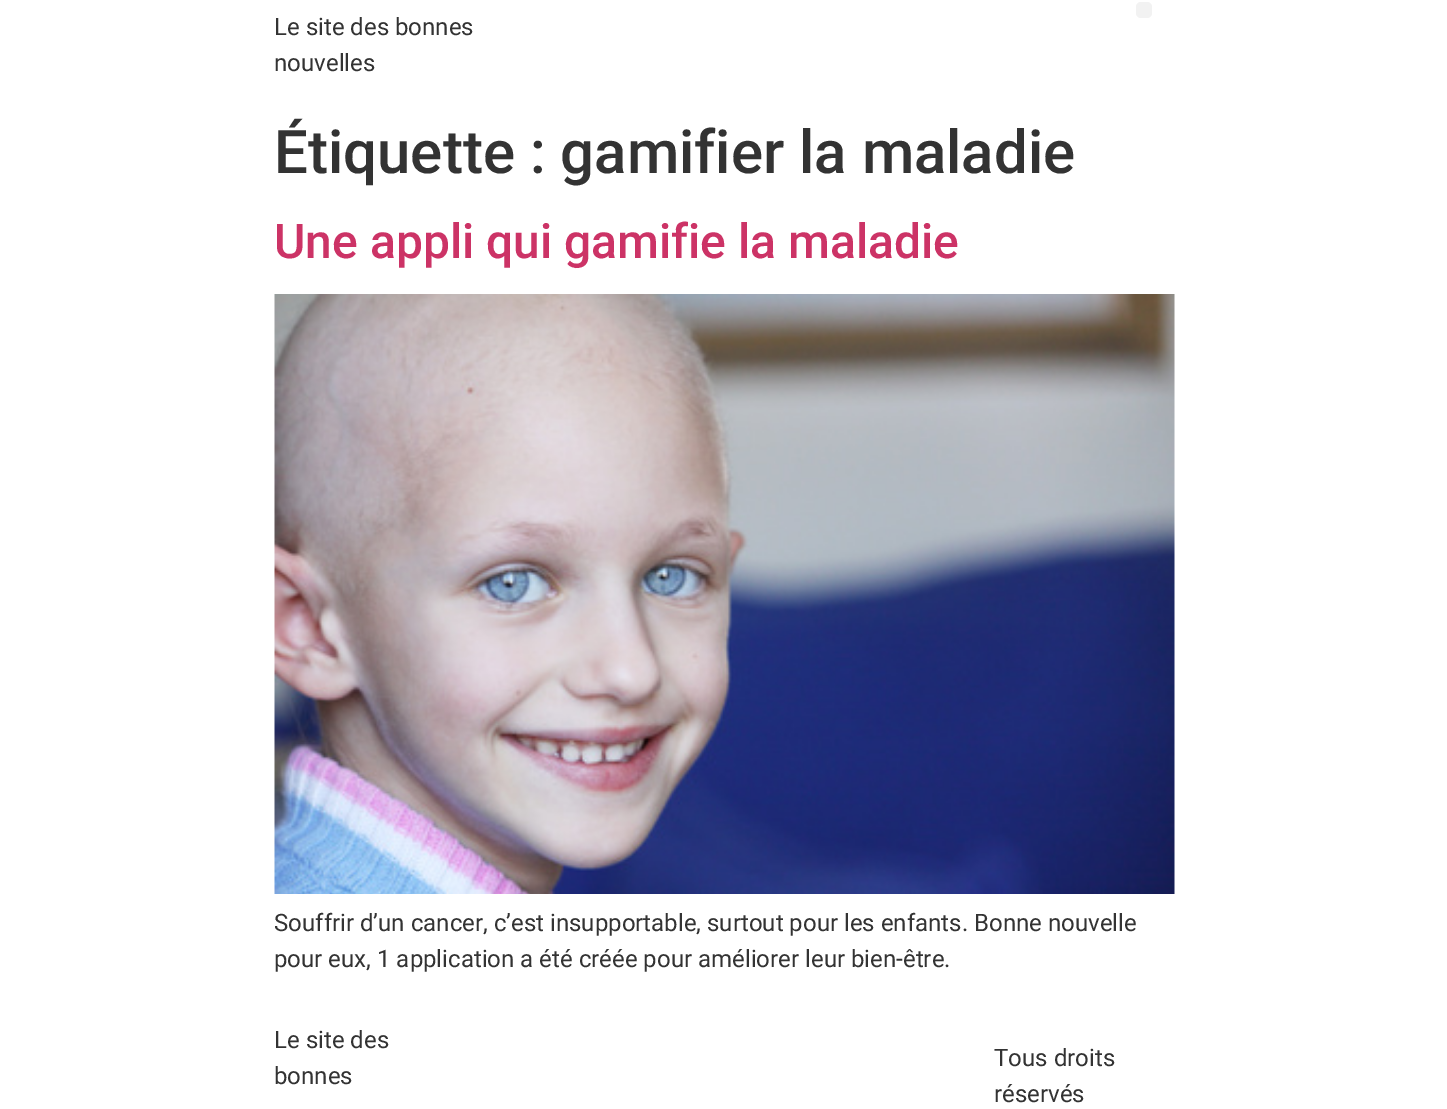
%!PS
<< /PageSize [1447 1109] >> setpagedevice
/fl/fill load def
/co { dup -16 bitshift 255 div exch dup -8 bitshift 255 and 255 div exch 255 and 255 div setrgbcolor } def
/fn { [ exch dup neg 0 0 3 -1 roll 0 0 ] selectfont } def
/tx { co fn moveto show } def
/bx { co rectfill } def
/rr { 5 dict begin { /r /h /w /y /x } { exch def } forall
  x r add y moveto x w add y 2 copy h add r arct x w add y h add x 1 index r arct
  x y h add x y r arct x y 2 copy exch w add exch r arct closepath end } def
/im { 5 dict begin { /h /w /y /x /name } { exch def } forall
  gsave x y translate w h scale
  w h 8 [w 0 0 h 0 0] name (r) file false 3 colorimage grestore end } def
0 1109 translate 1 -1 scale
4 setmiterlimit
0 0 1447 1109 16#FFFFFF bx
16#F2F2F2 co
1136 2 16 16 5 rr fl
(media/1.raw) 274 294 901 600 im
(Le site des bonnes) 274 35 /Roboto-Regular 24 16#333333 tx
(nouvelles) 274 71 /Roboto-Regular 24 16#333333 tx
(Étiquette : gamifier la maladie) 274 173 /Roboto-Medium 60 16#333333 tx
(Une appli qui gamifie la maladie) 274 258 /Roboto-Medium 48 16#CC3366 tx
(Souffrir d’un cancer, c’est insupportable, surtout pour les enfants. Bonne nouvelle) 274 931 /Roboto-Regular 24 16#333333 tx
(pour eux, 1 application a été créée pour améliorer leur bien-être.) 274 967 /Roboto-Regular 24 16#333333 tx
(Le site des) 274 1048 /Roboto-Regular 24 16#333333 tx
(bonnes) 274 1084 /Roboto-Regular 24 16#333333 tx
(Tous droits) 994 1066 /Roboto-Regular 24 16#333333 tx
(réservés) 994 1102 /Roboto-Regular 24 16#333333 tx
showpage
